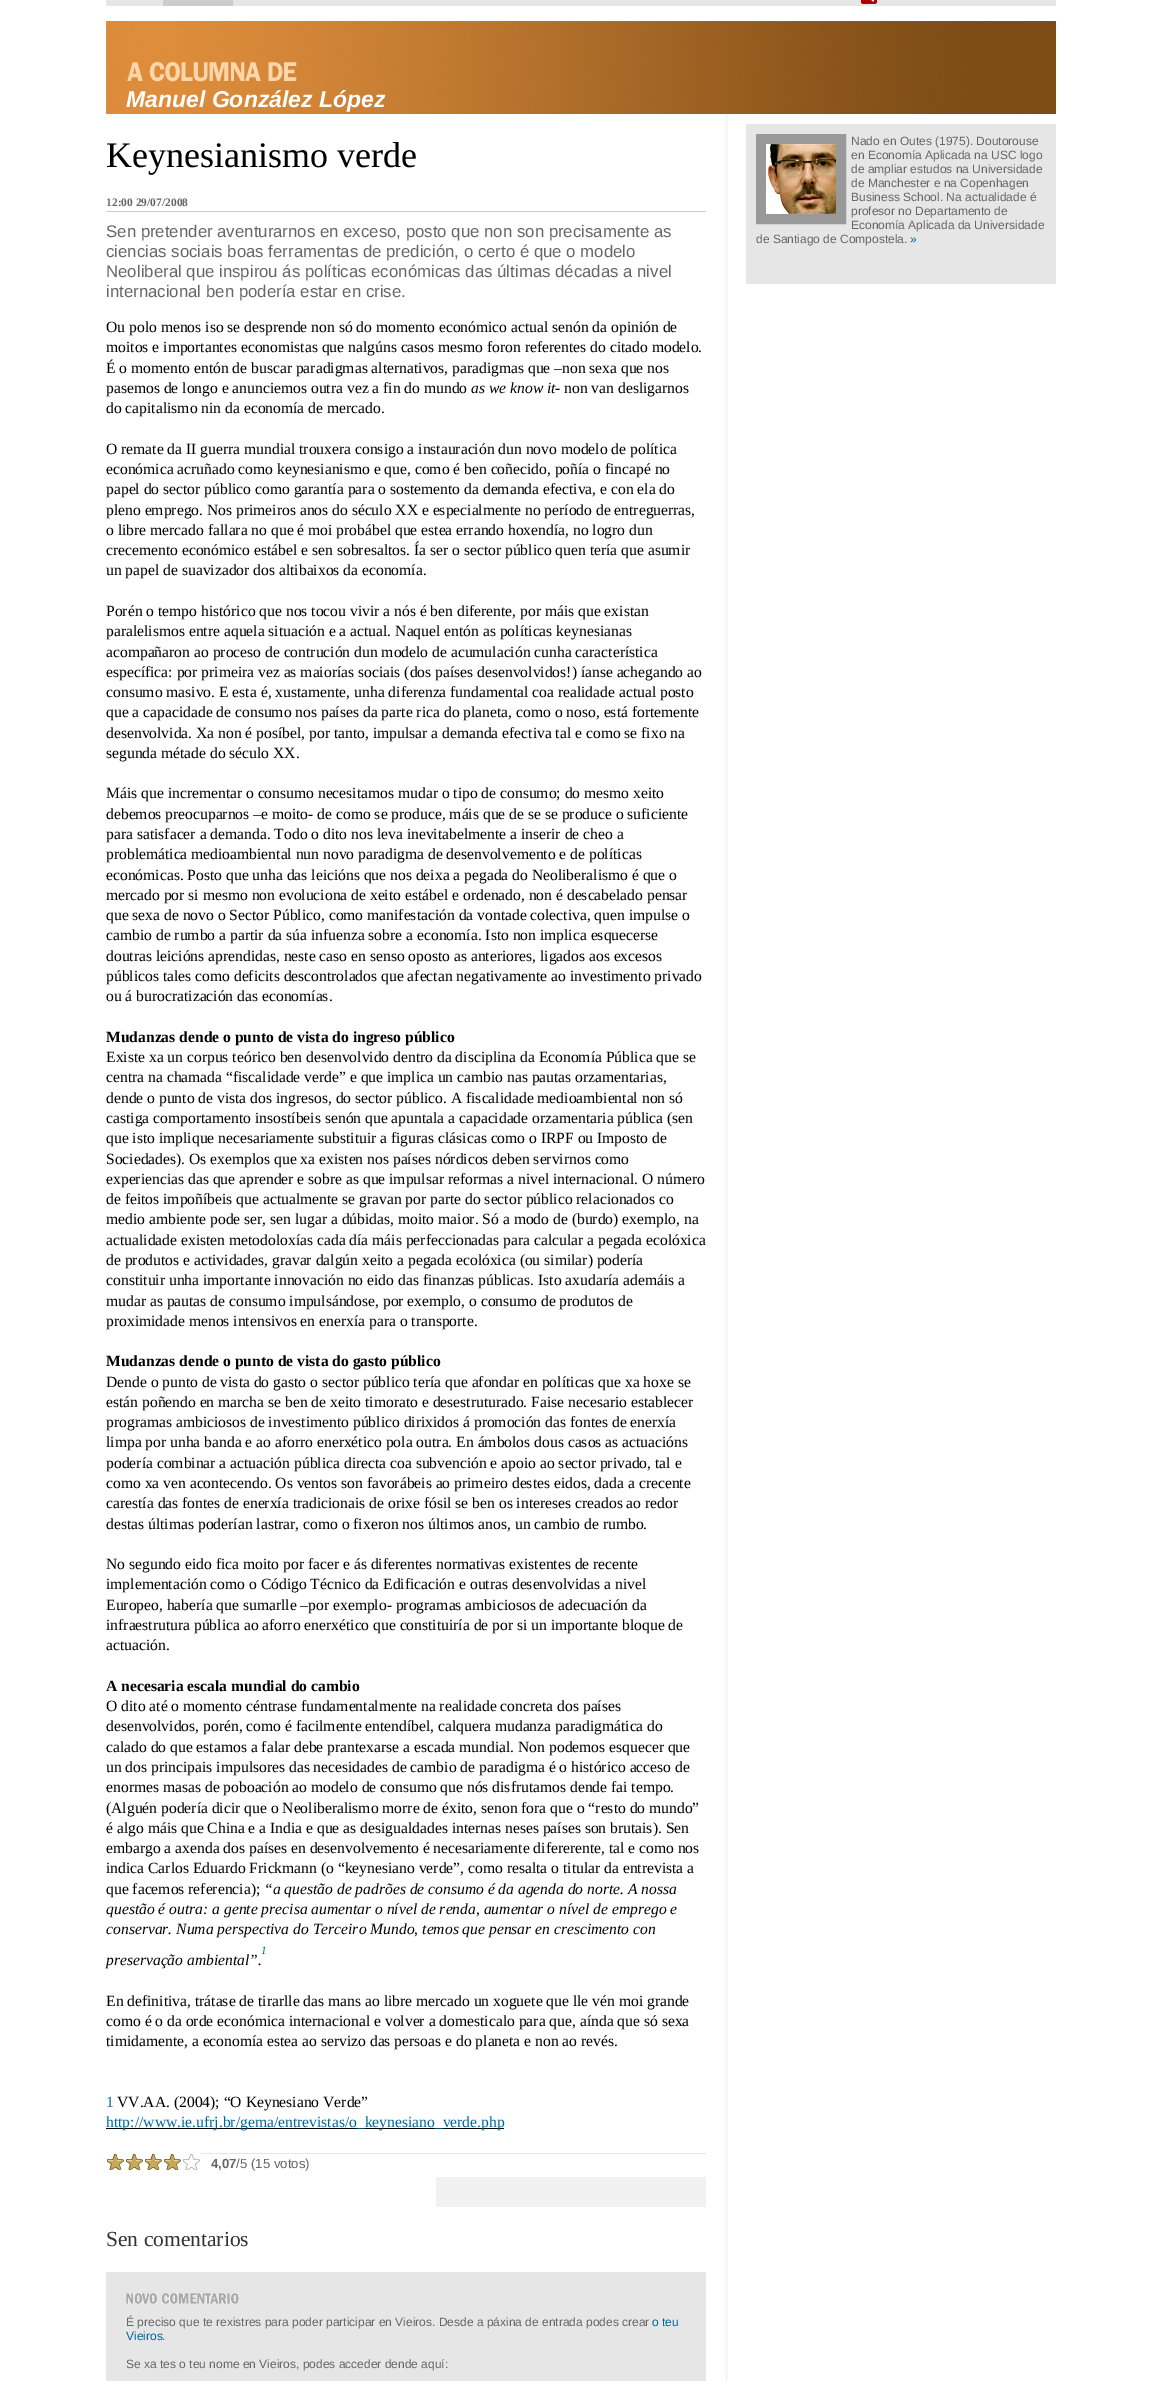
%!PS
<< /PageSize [1161 2381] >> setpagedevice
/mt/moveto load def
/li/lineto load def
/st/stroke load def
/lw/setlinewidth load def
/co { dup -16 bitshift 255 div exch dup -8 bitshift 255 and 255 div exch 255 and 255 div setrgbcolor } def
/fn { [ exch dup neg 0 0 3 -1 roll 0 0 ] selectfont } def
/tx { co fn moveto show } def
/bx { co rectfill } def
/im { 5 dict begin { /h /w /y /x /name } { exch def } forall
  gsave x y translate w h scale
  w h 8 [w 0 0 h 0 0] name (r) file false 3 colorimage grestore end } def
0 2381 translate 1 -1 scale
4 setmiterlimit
0 0 1161 2381 16#FFFFFF bx
106 0 950 6 16#E6E6E6 bx
163 0 70 6 16#CCCCCC bx
(media/1.raw) 861 0 16 4 im
(media/2.raw) 106 21 950 93 im
16#E6E6E6 co
[1 1] 0 setdash
726.5 114 mt 726.5 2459 li st
106 211 600 1 16#CCCCCC bx
106 2128 398 1 16#000000 bx
201 2153 505 1 16#E6E6E6 bx
(media/3.raw) 106 2153 95 17 im
(media/4.raw) 107 2154 74 16 im
436 2177 270 30 16#F1F1F1 bx
106 2272 600 109 16#E6E6E6 bx
(media/5.raw) 126 2293 113 11 im
746 124 310 160 16#E6E6E6 bx
16#999999 co
10 lw
[] 0 setdash
761 139 80 80 rectstroke
(media/6.raw) 766 144 70 70 im
(Manuel González López) 126 107 /LiberationSans-BoldItalic 23 16#FFFFFF tx
(Keynesianismo verde) 106 167 /LiberationSerif-Regular 36 16#000000 tx
(12:00 29/07/2008) 106 206 /LiberationSerif-Bold 11.5 16#666666 tx
(Sen pretender aventurarnos en exceso, posto que non son precisamente as) 106 237 /LiberationSans-Regular 16.8 16#666666 tx
(ciencias sociais boas ferramentas de predición, o certo é que o modelo) 106 257 /LiberationSans-Regular 16.8 16#666666 tx
(Neoliberal que inspirou ás políticas económicas das últimas décadas a nivel) 106 277 /LiberationSans-Regular 16.8 16#666666 tx
(internacional ben podería estar en crise.) 106 297 /LiberationSans-Regular 16.8 16#666666 tx
(Ou polo menos iso se desprende non só do momento económico actual senón da opinión de) 106 332 /LiberationSerif-Regular 15.6 16#000000 tx
(moitos e importantes economistas que nalgúns casos mesmo foron referentes do citado modelo.) 106 352 /LiberationSerif-Regular 15.6 16#000000 tx
(É o momento entón de buscar paradigmas alternativos, paradigmas que –non sexa que nos) 106 373 /LiberationSerif-Regular 15.6 16#000000 tx
(pasemos de longo e anunciemos outra vez a fin do mundo) 106 393 /LiberationSerif-Regular 15.6 16#000000 tx
(as we know it) 471 393 /LiberationSerif-Italic 15.6 16#000000 tx
(- non van desligarnos) 555 393 /LiberationSerif-Regular 15.6 16#000000 tx
(do capitalismo nin da economía de mercado.) 106 413 /LiberationSerif-Regular 15.6 16#000000 tx
(O remate da II guerra mundial trouxera consigo a instauración dun novo modelo de política) 106 454 /LiberationSerif-Regular 15.6 16#000000 tx
(económica acruñado como keynesianismo e que, como é ben coñecido, poñía o fincapé no) 106 474 /LiberationSerif-Regular 15.6 16#000000 tx
(papel do sector público como garantía para o sostemento da demanda efectiva, e con ela do) 106 494 /LiberationSerif-Regular 15.6 16#000000 tx
(pleno emprego. Nos primeiros anos do século XX e especialmente no período de entreguerras,) 106 515 /LiberationSerif-Regular 15.6 16#000000 tx
(o libre mercado fallara no que é moi probábel que estea errando hoxendía, no logro dun) 106 535 /LiberationSerif-Regular 15.6 16#000000 tx
(crecemento económico estábel e sen sobresaltos. Ía ser o sector público quen tería que asumir) 106 555 /LiberationSerif-Regular 15.6 16#000000 tx
(un papel de suavizador dos altibaixos da economía.) 106 575 /LiberationSerif-Regular 15.6 16#000000 tx
(Porén o tempo histórico que nos tocou vivir a nós é ben diferente, por máis que existan) 106 616 /LiberationSerif-Regular 15.6 16#000000 tx
(paralelismos entre aquela situación e a actual. Naquel entón as políticas keynesianas) 106 636 /LiberationSerif-Regular 15.6 16#000000 tx
(acompañaron ao proceso de contrución dun modelo de acumulación cunha característica) 106 657 /LiberationSerif-Regular 15.6 16#000000 tx
(específica: por primeira vez as maiorías sociais \(dos países desenvolvidos!\) íanse achegando ao) 106 677 /LiberationSerif-Regular 15.6 16#000000 tx
(consumo masivo. E esta é, xustamente, unha diferenza fundamental coa realidade actual posto) 106 697 /LiberationSerif-Regular 15.6 16#000000 tx
(que a capacidade de consumo nos países da parte rica do planeta, como o noso, está fortemente) 106 717 /LiberationSerif-Regular 15.6 16#000000 tx
(desenvolvida. Xa non é posíbel, por tanto, impulsar a demanda efectiva tal e como se fixo na) 106 738 /LiberationSerif-Regular 15.6 16#000000 tx
(segunda métade do século XX.) 106 758 /LiberationSerif-Regular 15.6 16#000000 tx
(Máis que incrementar o consumo necesitamos mudar o tipo de consumo; do mesmo xeito) 106 798 /LiberationSerif-Regular 15.6 16#000000 tx
(debemos preocuparnos –e moito- de como se produce, máis que de se se produce o suficiente) 106 819 /LiberationSerif-Regular 15.6 16#000000 tx
(para satisfacer a demanda. Todo o dito nos leva inevitabelmente a inserir de cheo a) 106 839 /LiberationSerif-Regular 15.6 16#000000 tx
(problemática medioambiental nun novo paradigma de desenvolvemento e de políticas) 106 859 /LiberationSerif-Regular 15.6 16#000000 tx
(económicas. Posto que unha das leicións que nos deixa a pegada do Neoliberalismo é que o) 106 880 /LiberationSerif-Regular 15.6 16#000000 tx
(mercado por si mesmo non evoluciona de xeito estábel e ordenado, non é descabelado pensar) 106 900 /LiberationSerif-Regular 15.6 16#000000 tx
(que sexa de novo o Sector Público, como manifestación da vontade colectiva, quen impulse o) 106 920 /LiberationSerif-Regular 15.6 16#000000 tx
(cambio de rumbo a partir da súa infuenza sobre a economía. Isto non implica esquecerse) 106 940 /LiberationSerif-Regular 15.6 16#000000 tx
(doutras leicións aprendidas, neste caso en senso oposto as anteriores, ligados aos excesos) 106 961 /LiberationSerif-Regular 15.6 16#000000 tx
(públicos tales como deficits descontrolados que afectan negativamente ao investimento privado) 106 981 /LiberationSerif-Regular 15.6 16#000000 tx
(ou á burocratización das economías.) 106 1001 /LiberationSerif-Regular 15.6 16#000000 tx
(Mudanzas dende o punto de vista do ingreso público) 106 1042 /LiberationSerif-Bold 15.6 16#000000 tx
(Existe xa un corpus teórico ben desenvolvido dentro da disciplina da Economía Pública que se) 106 1062 /LiberationSerif-Regular 15.6 16#000000 tx
(centra na chamada “fiscalidade verde” e que implica un cambio nas pautas orzamentarias,) 106 1082 /LiberationSerif-Regular 15.6 16#000000 tx
(dende o punto de vista dos ingresos, do sector público. A fiscalidade medioambiental non só) 106 1103 /LiberationSerif-Regular 15.6 16#000000 tx
(castiga comportamento insostíbeis senón que apuntala a capacidade orzamentaria pública \(sen) 106 1123 /LiberationSerif-Regular 15.6 16#000000 tx
(que isto implique necesariamente substituir a figuras clásicas como o IRPF ou Imposto de) 106 1143 /LiberationSerif-Regular 15.6 16#000000 tx
(Sociedades\). Os exemplos que xa existen nos países nórdicos deben servirnos como) 106 1164 /LiberationSerif-Regular 15.6 16#000000 tx
(experiencias das que aprender e sobre as que impulsar reformas a nivel internacional. O número) 106 1184 /LiberationSerif-Regular 15.6 16#000000 tx
(de feitos impoñíbeis que actualmente se gravan por parte do sector público relacionados co) 106 1204 /LiberationSerif-Regular 15.6 16#000000 tx
(medio ambiente pode ser, sen lugar a dúbidas, moito maior. Só a modo de \(burdo\) exemplo, na) 106 1224 /LiberationSerif-Regular 15.6 16#000000 tx
(actualidade existen metodoloxías cada día máis perfeccionadas para calcular a pegada ecolóxica) 106 1245 /LiberationSerif-Regular 15.6 16#000000 tx
(de produtos e actividades, gravar dalgún xeito a pegada ecolóxica \(ou similar\) podería) 106 1265 /LiberationSerif-Regular 15.6 16#000000 tx
(constituir unha importante innovación no eido das finanzas públicas. Isto axudaría ademáis a) 106 1285 /LiberationSerif-Regular 15.6 16#000000 tx
(mudar as pautas de consumo impulsándose, por exemplo, o consumo de produtos de) 106 1306 /LiberationSerif-Regular 15.6 16#000000 tx
(proximidade menos intensivos en enerxía para o transporte.) 106 1326 /LiberationSerif-Regular 15.6 16#000000 tx
(Mudanzas dende o punto de vista do gasto público) 106 1366 /LiberationSerif-Bold 15.6 16#000000 tx
(Dende o punto de vista do gasto o sector público tería que afondar en políticas que xa hoxe se) 106 1387 /LiberationSerif-Regular 15.6 16#000000 tx
(están poñendo en marcha se ben de xeito timorato e desestruturado. Faise necesario establecer) 106 1407 /LiberationSerif-Regular 15.6 16#000000 tx
(programas ambiciosos de investimento público dirixidos á promoción das fontes de enerxía) 106 1427 /LiberationSerif-Regular 15.6 16#000000 tx
(limpa por unha banda e ao aforro enerxético pola outra. En ámbolos dous casos as actuacións) 106 1447 /LiberationSerif-Regular 15.6 16#000000 tx
(podería combinar a actuación pública directa coa subvención e apoio ao sector privado, tal e) 106 1468 /LiberationSerif-Regular 15.6 16#000000 tx
(como xa ven acontecendo. Os ventos son favorábeis ao primeiro destes eidos, dada a crecente) 106 1488 /LiberationSerif-Regular 15.6 16#000000 tx
(carestía das fontes de enerxía tradicionais de orixe fósil se ben os intereses creados ao redor) 106 1508 /LiberationSerif-Regular 15.6 16#000000 tx
(destas últimas poderían lastrar, como o fixeron nos últimos anos, un cambio de rumbo.) 106 1529 /LiberationSerif-Regular 15.6 16#000000 tx
(No segundo eido fica moito por facer e ás diferentes normativas existentes de recente) 106 1569 /LiberationSerif-Regular 15.6 16#000000 tx
(implementación como o Código Técnico da Edificación e outras desenvolvidas a nivel) 106 1589 /LiberationSerif-Regular 15.6 16#000000 tx
(Europeo, habería que sumarlle –por exemplo- programas ambiciosos de adecuación da) 106 1610 /LiberationSerif-Regular 15.6 16#000000 tx
(infraestrutura pública ao aforro enerxético que constituiría de por si un importante bloque de) 106 1630 /LiberationSerif-Regular 15.6 16#000000 tx
(actuación.) 106 1650 /LiberationSerif-Regular 15.6 16#000000 tx
(A necesaria escala mundial do cambio) 106 1691 /LiberationSerif-Bold 15.6 16#000000 tx
(O dito até o momento céntrase fundamentalmente na realidade concreta dos países) 106 1711 /LiberationSerif-Regular 15.6 16#000000 tx
(desenvolvidos, porén, como é facilmente entendíbel, calquera mudanza paradigmática do) 106 1731 /LiberationSerif-Regular 15.6 16#000000 tx
(calado do que estamos a falar debe prantexarse a escada mundial. Non podemos esquecer que) 106 1752 /LiberationSerif-Regular 15.6 16#000000 tx
(un dos principais impulsores das necesidades de cambio de paradigma é o histórico acceso de) 106 1772 /LiberationSerif-Regular 15.6 16#000000 tx
(enormes masas de poboación ao modelo de consumo que nós disfrutamos dende fai tempo.) 106 1792 /LiberationSerif-Regular 15.6 16#000000 tx
(\(Alguén podería dicir que o Neoliberalismo morre de éxito, senon fora que o “resto do mundo”) 106 1813 /LiberationSerif-Regular 15.6 16#000000 tx
(é algo máis que China e a India e que as desigualdades internas neses países son brutais\). Sen) 106 1833 /LiberationSerif-Regular 15.6 16#000000 tx
(embargo a axenda dos países en desenvolvemento é necesariamente difererente, tal e como nos) 106 1853 /LiberationSerif-Regular 15.6 16#000000 tx
(indica Carlos Eduardo Frickmann \(o “keynesiano verde”, como resalta o titular da entrevista a) 106 1873 /LiberationSerif-Regular 15.6 16#000000 tx
(que facemos referencia\);) 106 1894 /LiberationSerif-Regular 15.6 16#000000 tx
(“a questão de padrões de consumo é da agenda do norte. A nossa) 264 1894 /LiberationSerif-Italic 15.6 16#000000 tx
(questão é outra: a gente precisa aumentar o nível de renda, aumentar o nível de emprego e) 106 1914 /LiberationSerif-Italic 15.6 16#000000 tx
(conservar. Numa perspectiva do Terceiro Mundo, temos que pensar en crescimento con) 106 1934 /LiberationSerif-Italic 15.6 16#000000 tx
(1) 261 1954 /LiberationSerif-Italic 11 16#006699 tx
(preservação ambiental”.) 106 1965 /LiberationSerif-Italic 15.6 16#000000 tx
(En definitiva, trátase de tirarlle das mans ao libre mercado un xoguete que lle vén moi grande) 106 2006 /LiberationSerif-Regular 15.6 16#000000 tx
(como é o da orde económica internacional e volver a domesticalo para que, aínda que só sexa) 106 2026 /LiberationSerif-Regular 15.6 16#000000 tx
(timidamente, a economía estea ao servizo das persoas e do planeta e non ao revés.) 106 2046 /LiberationSerif-Regular 15.6 16#000000 tx
(1) 106 2107 /LiberationSerif-Regular 15.6 16#006699 tx
(VV.AA. \(2004\); “O Keynesiano Verde”) 117 2107 /LiberationSerif-Regular 15.6 16#000000 tx
(http://www.ie.ufrj.br/gema/entrevistas/o_keynesiano_verde.php) 106 2127 /LiberationSerif-Regular 15.6 16#006699 tx
(4,07) 211 2168 /LiberationSans-Bold 13.25 16#666666 tx
(/5 \(15 votos\)) 236 2168 /LiberationSans-Regular 13.25 16#666666 tx
(Sen comentarios) 106 2246 /LiberationSerif-Regular 21.5 16#333333 tx
(É preciso que te rexistres para poder participar en Vieiros. Desde a páxina de entrada podes crear) 126 2326 /LiberationSans-Regular 12 16#666666 tx
(o teu) 652 2326 /LiberationSans-Regular 12 16#006699 tx
(Vieiros) 126 2340 /LiberationSans-Regular 12 16#006699 tx
(.) 162 2340 /LiberationSans-Regular 12 16#666666 tx
(Se xa tes o teu nome en Vieiros, podes acceder dende aquí:) 126 2368 /LiberationSans-Regular 12 16#666666 tx
(Nado en Outes \(1975\). Doutorouse) 851 145 /LiberationSans-Regular 12 16#666666 tx
(en Economía Aplicada na USC logo) 851 159 /LiberationSans-Regular 12 16#666666 tx
(de ampliar estudos na Universidade) 851 173 /LiberationSans-Regular 12 16#666666 tx
(de Manchester e na Copenhagen) 851 187 /LiberationSans-Regular 12 16#666666 tx
(Business School. Na actualidade é) 851 201 /LiberationSans-Regular 12 16#666666 tx
(profesor no Departamento de) 851 215 /LiberationSans-Regular 12 16#666666 tx
(Economía Aplicada da Universidade) 851 229 /LiberationSans-Regular 12 16#666666 tx
(de Santiago de Compostela.) 756 243 /LiberationSans-Regular 12 16#666666 tx
(») 910 243 /LiberationSans-Regular 12 16#006699 tx
showpage
